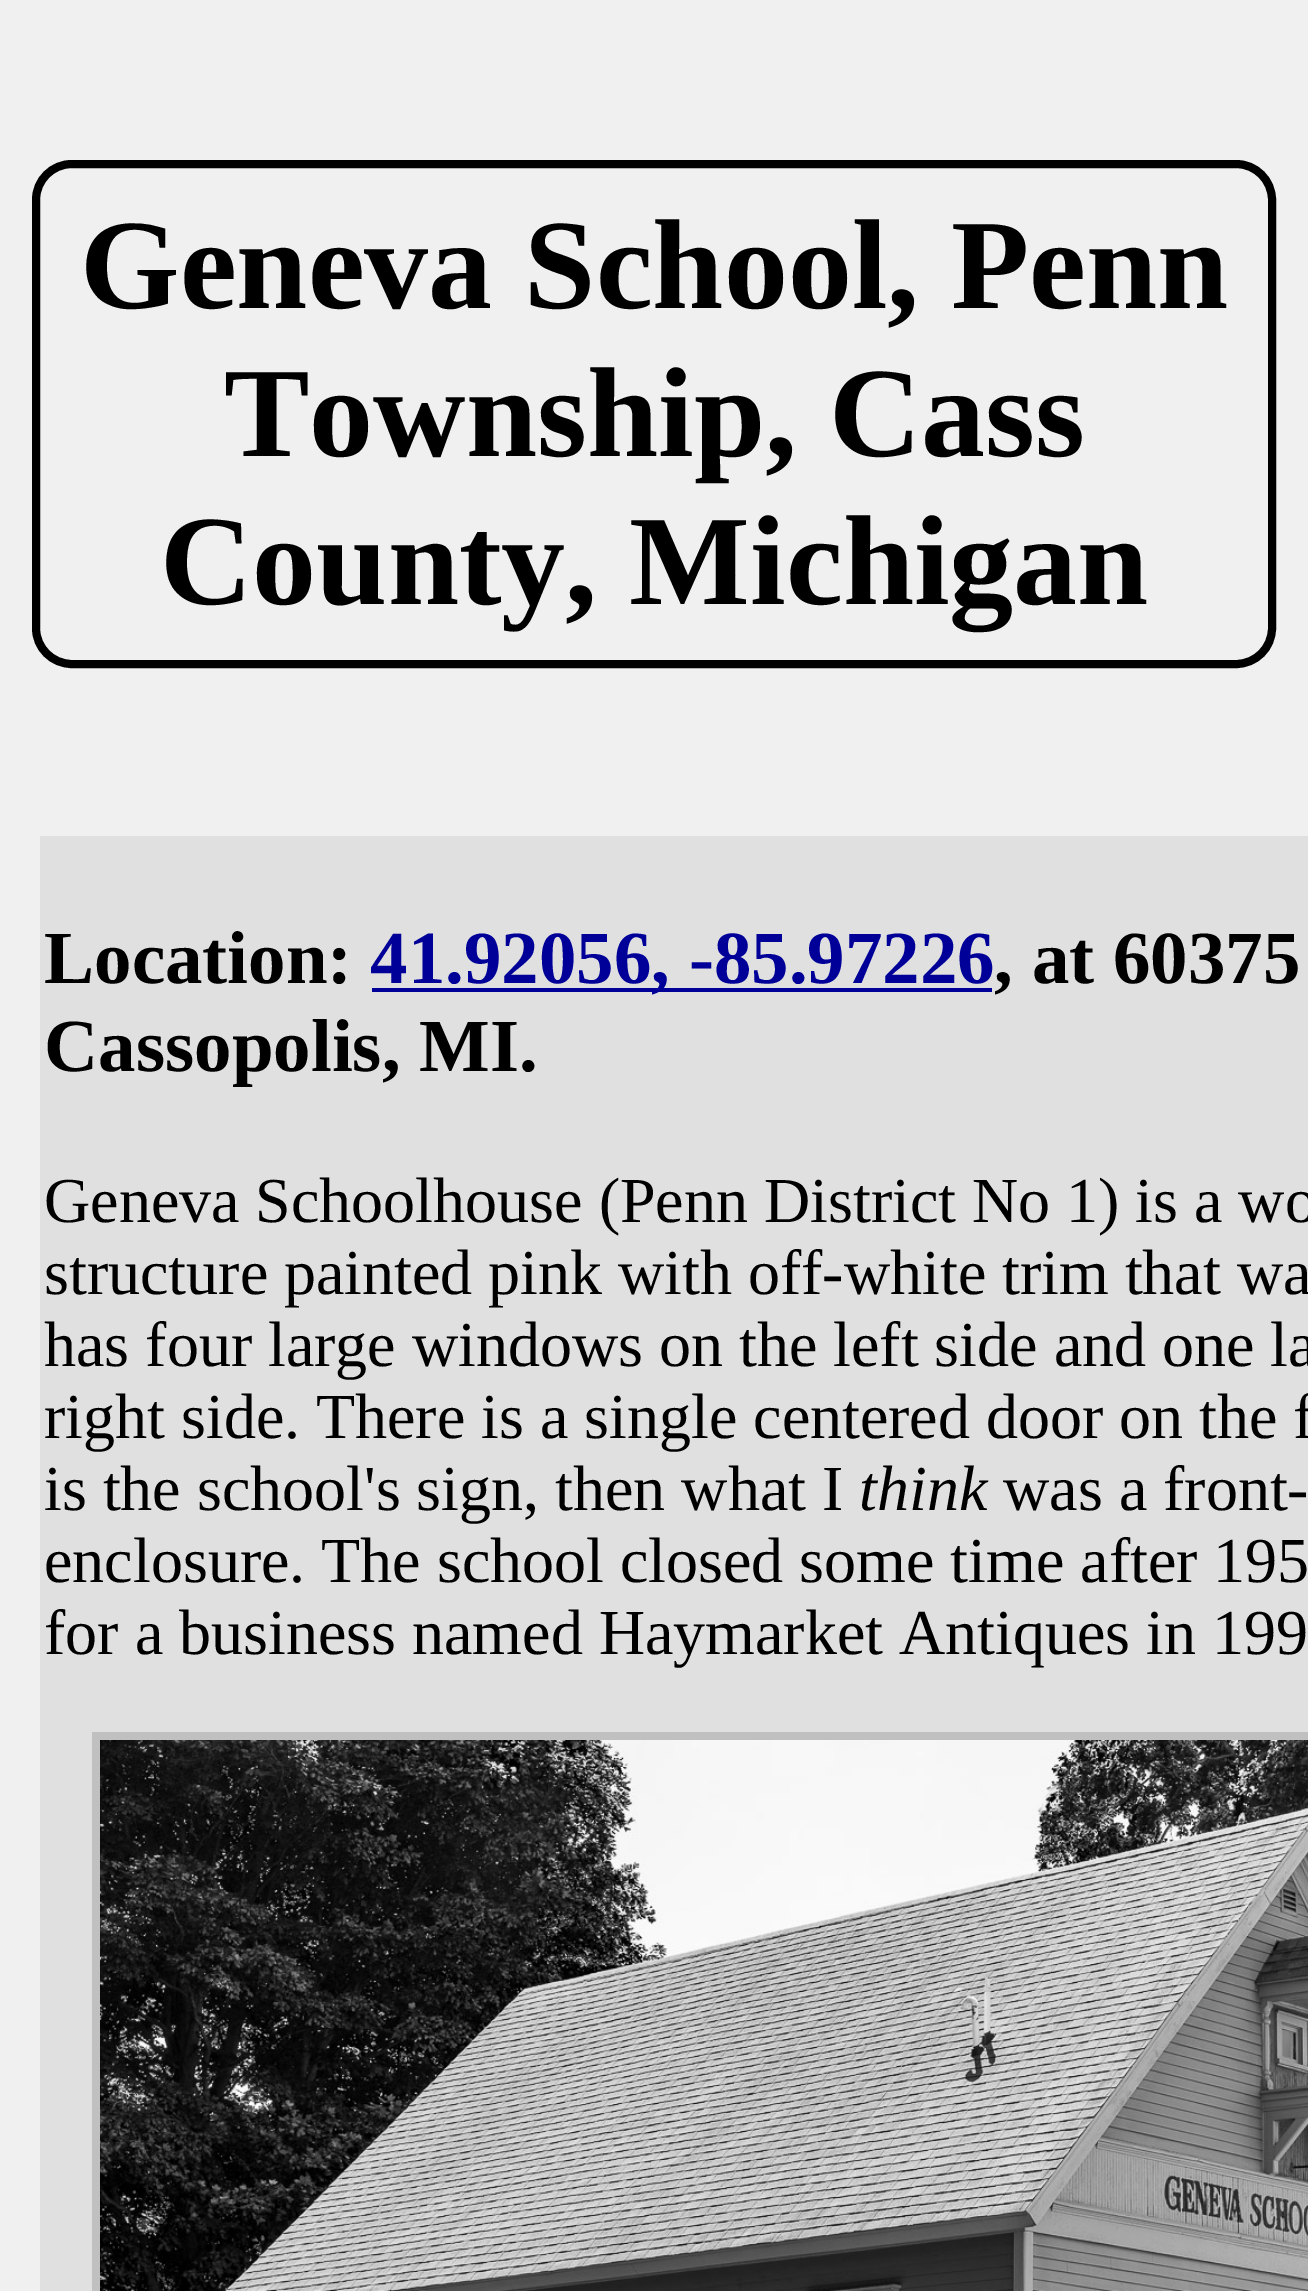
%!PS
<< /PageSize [1308 2291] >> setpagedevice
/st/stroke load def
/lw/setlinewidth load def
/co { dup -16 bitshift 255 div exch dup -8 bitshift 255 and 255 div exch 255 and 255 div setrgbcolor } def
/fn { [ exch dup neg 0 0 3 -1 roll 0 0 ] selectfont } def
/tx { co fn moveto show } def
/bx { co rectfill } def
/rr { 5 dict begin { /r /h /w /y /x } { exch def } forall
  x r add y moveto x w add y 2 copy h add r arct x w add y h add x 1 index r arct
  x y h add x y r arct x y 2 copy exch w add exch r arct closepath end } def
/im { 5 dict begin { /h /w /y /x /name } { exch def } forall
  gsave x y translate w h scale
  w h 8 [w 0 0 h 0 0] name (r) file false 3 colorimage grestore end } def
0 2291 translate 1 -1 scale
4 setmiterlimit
0 0 1308 2291 16#F0F0F0 bx
16#000000 co
8 lw
36 164 1236 500 36 rr st
40 836 1268 1455 16#E0E0E0 bx
372 988 620 4 16#000099 bx
16#C0C0C0 co
96 1736 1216 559 rectstroke
(media/1.raw) 100 1740 1208 551 im
(Geneva School, Penn) 80 308 /LiberationSerif-Bold 128 16#000000 tx
(Township, Cass) 224 456 /LiberationSerif-Bold 128 16#000000 tx
(County, Michigan) 160 604 /LiberationSerif-Bold 128 16#000000 tx
(Location:) 44 983 /LiberationSerif-Bold 75 16#000000 tx
(41.92056, -85.97226) 370 983 /LiberationSerif-Bold 75 16#000099 tx
(, at 60375) 994 983 /LiberationSerif-Bold 75 16#000000 tx
(Cassopolis, MI.) 44 1071 /LiberationSerif-Bold 75 16#000000 tx
(Geneva Schoolhouse \(Penn District No 1\) is a wo) 44 1222 /LiberationSerif-Regular 64 16#000000 tx
(structure painted pink with off-white trim that wa) 44 1294 /LiberationSerif-Regular 64 16#000000 tx
(has four large windows on the left side and one la) 44 1366 /LiberationSerif-Regular 64 16#000000 tx
(right side. There is a single centered door on the f) 44 1438 /LiberationSerif-Regular 64 16#000000 tx
(is the school's sign, then what I) 44 1510 /LiberationSerif-Regular 64 16#000000 tx
(think) 859 1510 /LiberationSerif-Italic 64 16#000000 tx
(was a front-) 1003 1510 /LiberationSerif-Regular 64 16#000000 tx
(enclosure. The school closed some time after 195) 44 1582 /LiberationSerif-Regular 64 16#000000 tx
(for a business named Haymarket Antiques in 199) 44 1654 /LiberationSerif-Regular 64 16#000000 tx
showpage
